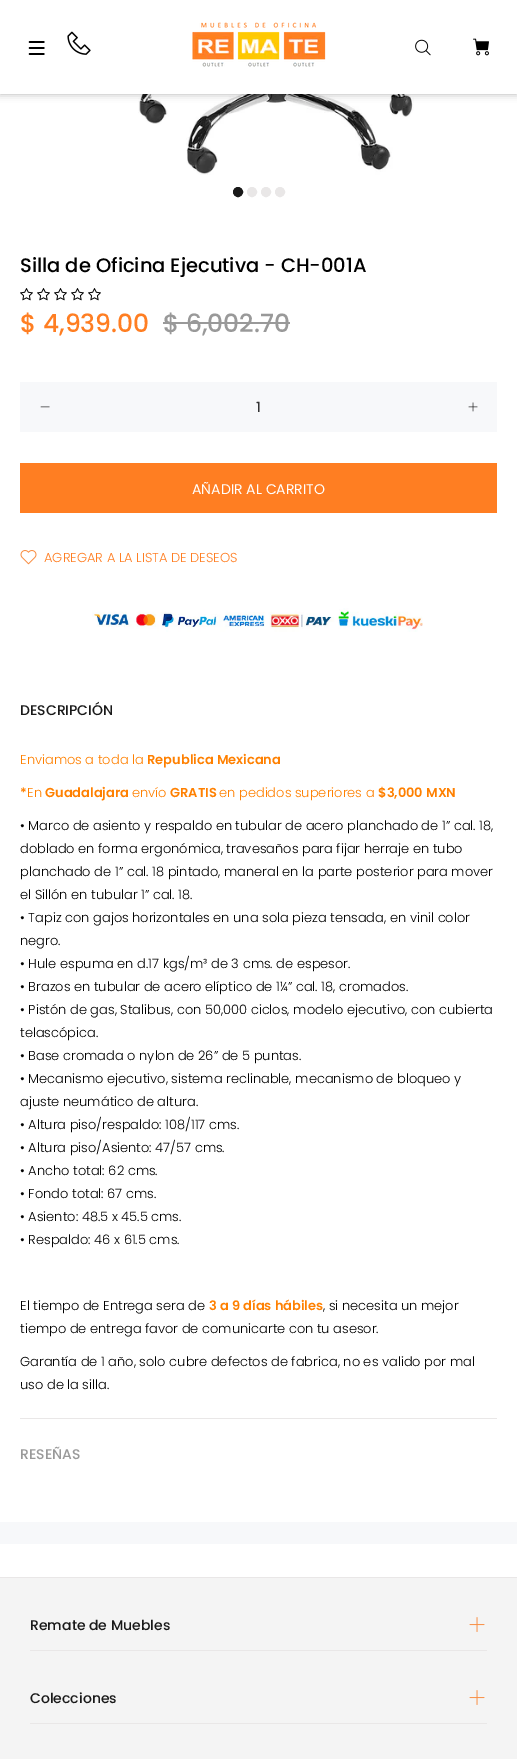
%!PS
<< /PageSize [517 1759] /PageUsesTransparency true >> setpagedevice
/fl/fill load def
/st/stroke load def
/gs/gsave load def
/gr/grestore load def
/co { dup -16 bitshift 255 div exch dup -8 bitshift 255 and 255 div exch 255 and 255 div setrgbcolor } def
/fn { [ exch dup neg 0 0 3 -1 roll 0 0 ] selectfont } def
/tx { co fn moveto show } def
/bx { co rectfill } def
/al { dup .setfillconstantalpha .setstrokeconstantalpha } def
/ci { newpath 0 360 arc closepath } def
/rr { 5 dict begin { /r /h /w /y /x } { exch def } forall
  x r add y moveto x w add y 2 copy h add r arct x w add y h add x 1 index r arct
  x y h add x y r arct x y 2 copy exch w add exch r arct closepath end } def
/sh { 12 dict begin { /a /b /q /h /w /y /x } { exch def } forall gsave /was 0 def
  9 -2 -9 { dup b mul 4 div /e exch def 1 sub .425 mul 2.718 exch exp 1 add a .99 .min exch div /now exch def
    1 1 now sub 1 was sub div sub al /was now def
    w h .min e 2 mul add 0 gt { x e sub y e sub w e 2 mul add h e 2 mul add
      q e add b .6 mul add w h .min 2 div e add .min 0 .max rr fill } if } for grestore end } def
/im { 5 dict begin { /h /w /y /x /name } { exch def } forall
  gsave x y translate w h scale
  w h 8 [w 0 0 h 0 0] name (r) file false 3 colorimage grestore end } def
0 .pushpdf14devicefilter
0 1759 translate 1 -1 scale
4 setmiterlimit
0 0 517 1759 16#FFFFFF bx
(media/6.raw) 138 94 276 81 im
16#000000 co
0 0 517 94 0 4 .3 sh
0 0 517 94 16#FFFFFF bx
(media/1.raw) 28 41 17 14 im
(media/2.raw) 67 31 24 24 im
(media/3.raw) 192 22 134 45 im
(media/4.raw) 415 39 16 17 im
(media/5.raw) 473 38 16 18 im
16#191919 co
238 192 4.5 ci gs fl gr
st
16#E9E7E7 co
252 192 4.5 ci gs fl gr
st
266 192 4.5 ci gs fl gr
st
280 192 4.5 ci gs fl gr
st
(media/7.raw) 20 288 13 13 im
(media/7.raw) 37 288 13 13 im
(media/7.raw) 54 288 13 13 im
(media/7.raw) 71 288 13 13 im
(media/7.raw) 88 288 13 13 im
163 322 127 2 16#999999 bx
20 382 477 50 16#F7F8FA bx
(media/8.raw) 40 406 10 2 im
(media/9.raw) 468 402 10 10 im
20 463 477 50 16#FF7E22 bx
(media/10.raw) 20 550 17 15 im
(media/11.raw) 92 608 331 24 im
20 1418 477 1 16#E9E7E7 bx
0 1522 517 22 16#F7F8FA bx
0 1578 517 181 16#F4F4F4 bx
0 1577 517 1 16#E9E7E7 bx
30 1650 457 1 16#E9E7E7 bx
(media/12.raw) 469 1617 16 15 im
30 1723 457 1 16#E9E7E7 bx
(media/12.raw) 469 1690 16 15 im
(Silla de Oficina Ejecutiva - CH-001A) 20 272 /Poppins-Medium 19.5 16#000000 tx
($ 4,939.00) 20 332 /Poppins-Medium 25 16#FF7E22 tx
($ 6,002.70) 163 332 /Poppins-Medium 25 16#999999 tx
(1) 256 412 /Poppins-Medium 14 16#333333 tx
(AÑADIR AL CARRITO) 192 494 /Poppins-Regular 14 16#FFFFFF tx
(AGREGAR A LA LISTA DE DESEOS) 44 562 /Poppins-Light 13 16#FF7E22 tx
(DESCRIPCIÓN) 20 715 /Poppins-Medium 14 16#191919 tx
(Enviamos a toda la) 20 764 /Poppins-Light 13 16#FF8000 tx
(Republica Mexicana) 147 764 /Poppins-SemiBold 13 16#FF8000 tx
(*) 20 797 /Poppins-SemiBold 13 16#FF8000 tx
(En) 27 797 /Poppins-Light 13 16#FF8000 tx
(Guadalajara) 45 797 /Poppins-SemiBold 13 16#FF8000 tx
(envío) 132 797 /Poppins-Light 13 16#FF8000 tx
(GRATIS) 170 797 /Poppins-SemiBold 13 16#FF8000 tx
(en pedidos superiores a) 219 797 /Poppins-Light 13 16#FF8000 tx
($3,000 MXN) 378 797 /Poppins-SemiBold 13 16#FF8000 tx
(• Marco de asiento y respaldo en tubular de acero planchado de 1” cal. 18,) 20 830 /Poppins-Light 13 16#000000 tx
(doblado en forma ergonómica, travesaños para fijar herraje en tubo) 20 853 /Poppins-Light 13 16#000000 tx
(planchado de 1” cal. 18 pintado, maneral en la parte posterior para mover) 20 876 /Poppins-Light 13 16#000000 tx
(el Sillón en tubular 1” cal. 18.) 20 899 /Poppins-Light 13 16#000000 tx
(• Tapiz con gajos horizontales en una sola pieza tensada, en vinil color) 20 922 /Poppins-Light 13 16#000000 tx
(negro.) 20 945 /Poppins-Light 13 16#000000 tx
(• Hule espuma en d.17 kgs/m³ de 3 cms. de espesor.) 20 968 /Poppins-Light 13 16#000000 tx
(• Brazos en tubular de acero elíptico de 1¼” cal. 18, cromados.) 20 991 /Poppins-Light 13 16#000000 tx
(• Pistón de gas, Stalibus, con 50,000 ciclos, modelo ejecutivo, con cubierta) 20 1014 /Poppins-Light 13 16#000000 tx
(telascópica.) 20 1037 /Poppins-Light 13 16#000000 tx
(• Base cromada o nylon de 26” de 5 puntas.) 20 1060 /Poppins-Light 13 16#000000 tx
(• Mecanismo ejecutivo, sistema reclinable, mecanismo de bloqueo y) 20 1083 /Poppins-Light 13 16#000000 tx
(ajuste neumático de altura.) 20 1106 /Poppins-Light 13 16#000000 tx
(• Altura piso/respaldo: 108/117 cms.) 20 1129 /Poppins-Light 13 16#000000 tx
(• Altura piso/Asiento: 47/57 cms.) 20 1152 /Poppins-Light 13 16#000000 tx
(• Ancho total: 62 cms.) 20 1175 /Poppins-Light 13 16#000000 tx
(• Fondo total: 67 cms.) 20 1198 /Poppins-Light 13 16#000000 tx
(• Asiento: 48.5 x 45.5 cms.) 20 1221 /Poppins-Light 13 16#000000 tx
(• Respaldo: 46 x 61.5 cms.) 20 1244 /Poppins-Light 13 16#000000 tx
(El tiempo de Entrega sera de) 20 1310 /Poppins-Light 13 16#000000 tx
(3 a 9 días hábiles) 209 1310 /Poppins-SemiBold 13 16#FF8000 tx
(, si necesita un mejor) 323 1310 /Poppins-Light 13 16#000000 tx
(tiempo de entrega favor de comunicarte con tu asesor.) 20 1333 /Poppins-Light 13 16#000000 tx
(Garantía de 1 año, solo cubre defectos de fabrica, no es valido por mal) 20 1366 /Poppins-Light 13 16#000000 tx
(uso de la silla.) 20 1389 /Poppins-Light 13 16#000000 tx
(RESEÑAS) 20 1459 /Poppins-Medium 14 16#999999 tx
(Remate de Muebles) 30 1630 /Poppins-Medium 14 16#191919 tx
(Colecciones) 30 1703 /Poppins-Medium 14 16#191919 tx
.poppdf14devicefilter showpage
